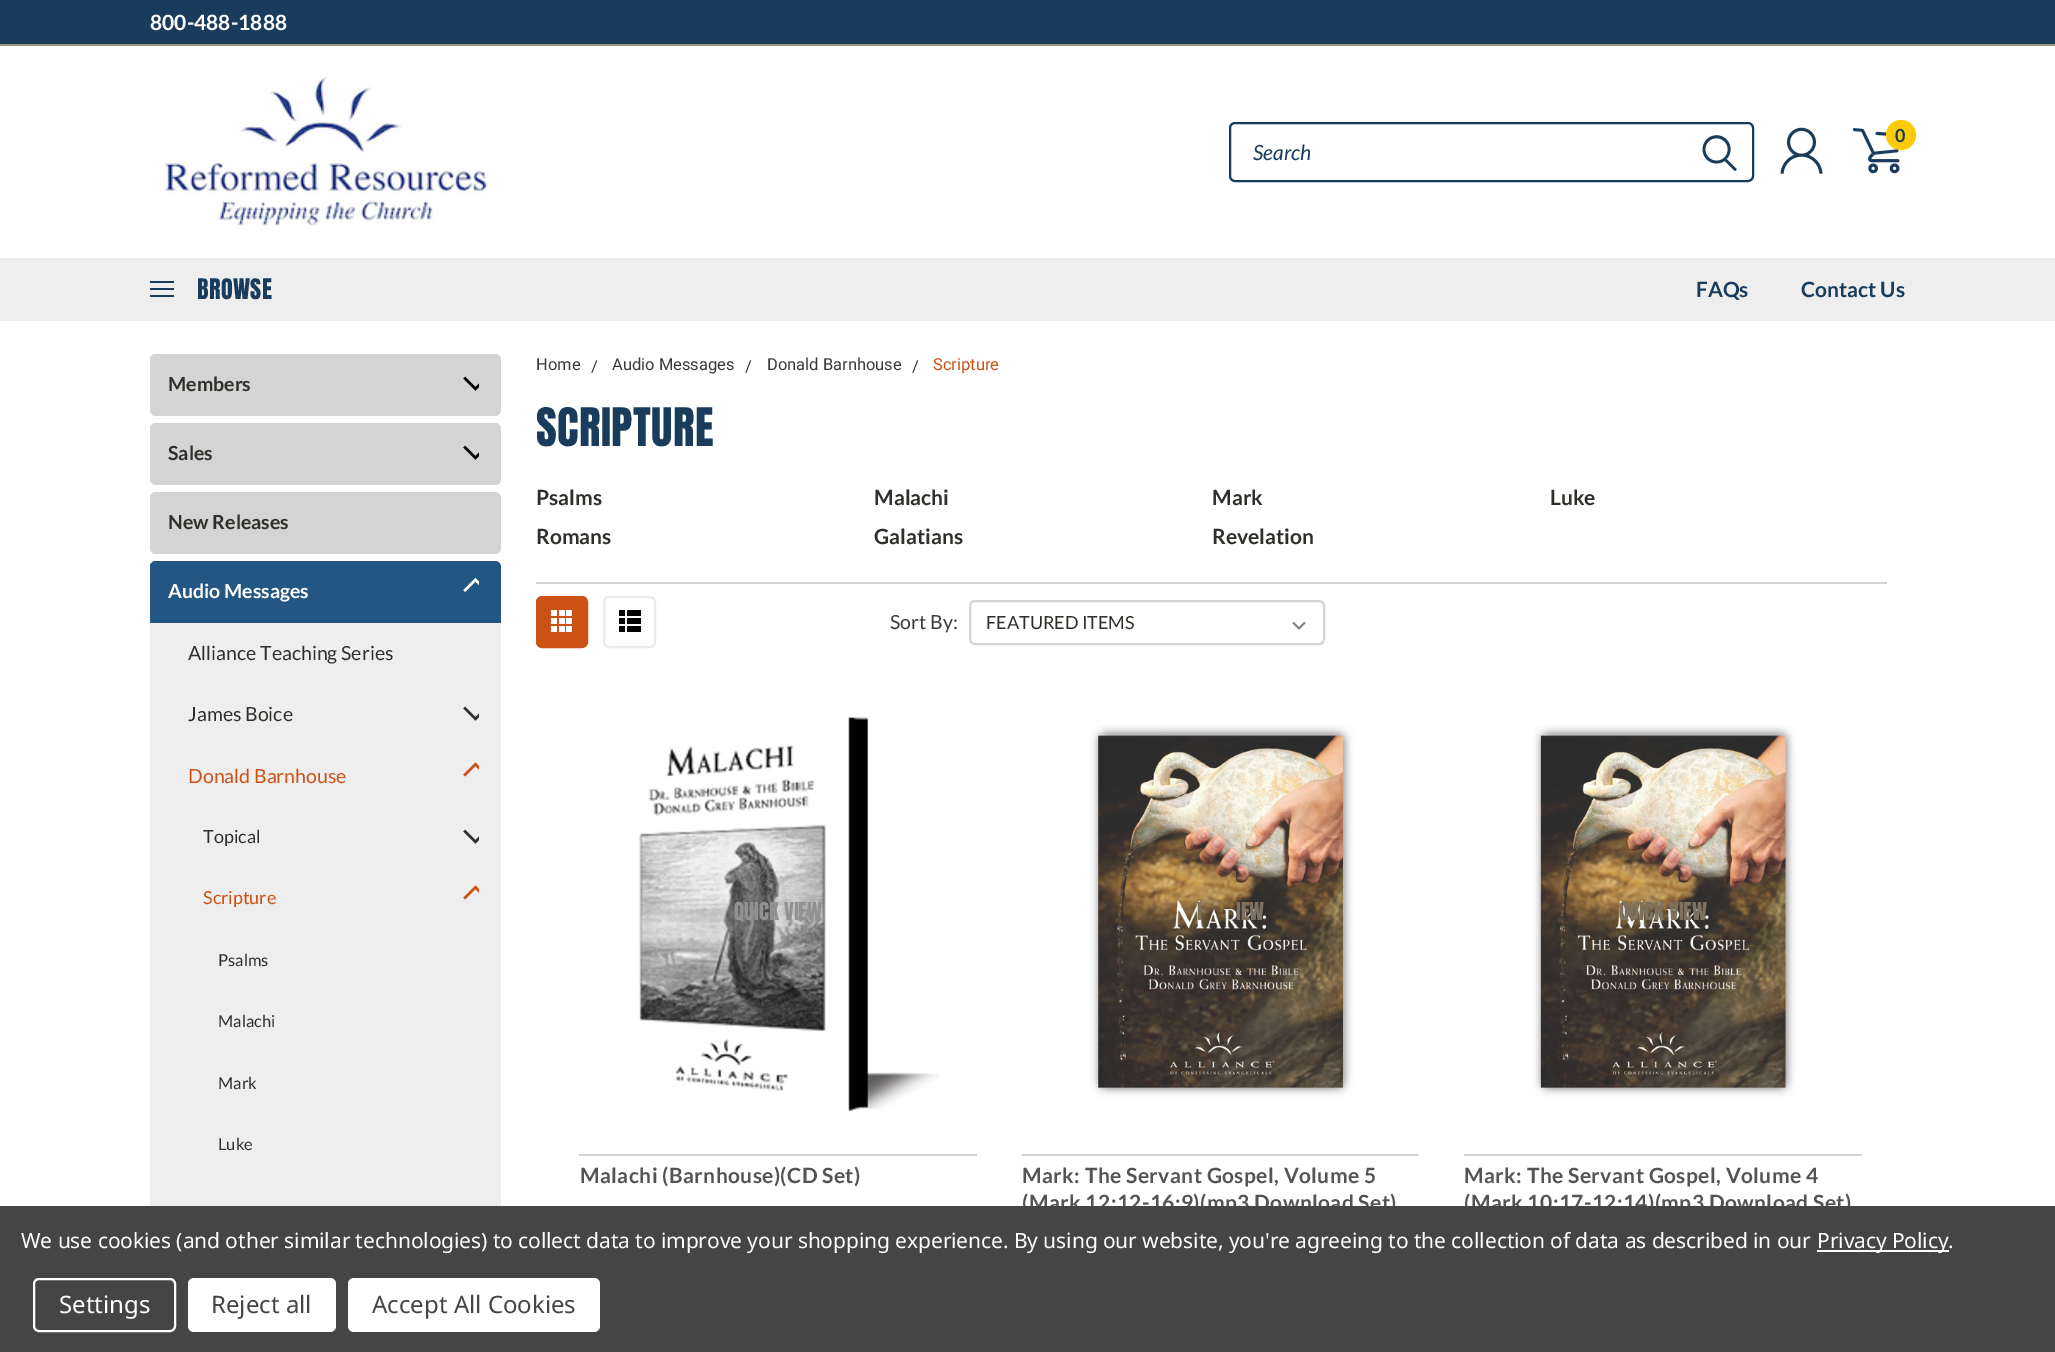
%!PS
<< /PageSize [2055 1352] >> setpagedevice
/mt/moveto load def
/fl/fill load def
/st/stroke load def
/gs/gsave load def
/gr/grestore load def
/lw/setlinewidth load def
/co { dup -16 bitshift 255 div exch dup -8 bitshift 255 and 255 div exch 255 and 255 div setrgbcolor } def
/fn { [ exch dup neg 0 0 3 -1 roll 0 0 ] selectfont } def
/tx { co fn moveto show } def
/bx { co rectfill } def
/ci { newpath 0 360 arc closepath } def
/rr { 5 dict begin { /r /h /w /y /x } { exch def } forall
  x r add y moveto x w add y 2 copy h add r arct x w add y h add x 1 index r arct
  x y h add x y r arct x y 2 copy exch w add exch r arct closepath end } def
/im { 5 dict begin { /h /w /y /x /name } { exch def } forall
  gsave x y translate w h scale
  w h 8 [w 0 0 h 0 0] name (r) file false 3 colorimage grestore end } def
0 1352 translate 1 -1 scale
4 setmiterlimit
0 0 2055 1352 16#FFFFFF bx
0 0 2055 44 16#193C5C bx
0 44 2055 2 16#9A977E bx
(media/1.raw) 164 76 325 150 im
(media/2.raw) 1780 127 43 47 im
(media/3.raw) 1852 128 48 46 im
16#FFCB07 co
1901 135 15 ci fl
16#193C5C co
2 lw
1230 123 523 58 5 rr st
(media/4.raw) 1702 135 35 37 im
0 258 2055 63 16#EEEEEE bx
150 281 24 2 16#193C5C bx
150 288 24 2 16#193C5C bx
150 295 24 2 16#193C5C bx
16#D4D4D4 co
150 354 351 62 6 rr fl
150 354 299 60 6 rr fl
(media/5.raw) 463 376 16 15 im
150 423 351 62 6 rr fl
150 423 299 60 6 rr fl
(media/5.raw) 463 445 16 15 im
150 492 351 62 6 rr fl
150 492 299 60 6 rr fl
16#245684 co
150 561 351 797 6 rr fl
150 561 299 60 6 rr fl
(media/6.raw) 463 578 16 14 im
150 623 351 583 16#EEEEEE bx
(media/7.raw) 463 706 16 15 im
(media/8.raw) 463 762 16 15 im
(media/7.raw) 463 829 16 15 im
(media/8.raw) 463 885 16 15 im
536 582 1351 2 16#D4D4D4 bx
16#CC5216 co
537 597 50 50 5 rr gs fl gr
st
(media/9.raw) 551 610 21 22 im
16#EBEBEB co
604 597 51 50 5 rr st
(media/10.raw) 619 610 22 22 im
(media/11.raw) 1292 621 14 9 im
16#D4D4D4 co
970 601 354 43 5 rr st
(media/12.raw) 638 717 302 395 im
579 1154 398 2 16#D4D4D4 bx
(media/13.raw) 1090 725 264 373 im
1022 1154 397 2 16#D4D4D4 bx
(media/14.raw) 1528 725 268 373 im
1464 1154 398 2 16#D4D4D4 bx
(800-488-1888) 150 30 /Lato-Bold 21 16#FFFFFF tx
(0) 1895 142 /Lato-Bold 18 16#193C5C tx
(Search) 1253 160 /Lato-Italic 21 16#193C5C tx
/Anton-Regular 24 fn
197 299 mt .4 0 (BROWSE) ashow
(FAQs) 1696 297 /Lato-Bold 21 16#193C5C tx
(Contact Us) 1801 297 /Lato-Bold 21 16#193C5C tx
(Members) 168 391 /Lato-Bold 19.5 16#2F2F2B tx
(Sales) 168 460 /Lato-Bold 19.5 16#2F2F2B tx
(New Releases) 168 529 /Lato-Bold 19.5 16#2F2F2B tx
(Audio Messages) 168 598 /Lato-Bold 19.5 16#FFFFFF tx
(Alliance Teaching Series) 188 660 /Lato-Regular 19.5 16#2F2F2B tx
(James Boice) 188 721 /Lato-Regular 19.5 16#2F2F2B tx
(Donald Barnhouse) 188 783 /Lato-Regular 19.5 16#CC5216 tx
(Topical) 203 843 /Lato-Regular 18 16#2F2F2B tx
(Scripture) 203 904 /Lato-Regular 18 16#CC5216 tx
(Psalms) 218 966 /Lato-Regular 16.5 16#2F2F2B tx
(Malachi) 218 1027 /Lato-Regular 16.5 16#2F2F2B tx
(Mark) 218 1089 /Lato-Regular 16.5 16#2F2F2B tx
(Luke) 218 1150 /Lato-Regular 16.5 16#2F2F2B tx
(Home) 536 370 /Roboto-Regular 16.5 16#393939 tx
(/) 591 372 /Roboto-Regular 16.5 16#393939 tx
(Audio Messages) 612 370 /Roboto-Regular 16.5 16#393939 tx
(/) 745 372 /Roboto-Regular 16.5 16#393939 tx
(Donald Barnhouse) 767 370 /Roboto-Regular 16.5 16#393939 tx
(/) 912 372 /Roboto-Regular 16.5 16#393939 tx
(Scripture) 933 370 /Roboto-Regular 16.5 16#CC5216 tx
/Anton-Regular 45 fn
16#193C5C co
536 446 mt .4 0 (SCRIPTURE) ashow
(Psalms) 536 505 /Lato-Bold 21 16#2F2F2B tx
(Malachi) 874 505 /Lato-Bold 21 16#2F2F2B tx
(Mark) 1212 505 /Lato-Bold 21 16#2F2F2B tx
(Luke) 1550 505 /Lato-Bold 21 16#2F2F2B tx
(Romans) 536 544 /Lato-Bold 21 16#2F2F2B tx
(Galatians) 874 544 /Lato-Bold 21 16#2F2F2B tx
(Revelation) 1212 544 /Lato-Bold 21 16#2F2F2B tx
(Sort By:) 890 629 /Lato-Regular 19.5 16#393939 tx
(FEATURED ITEMS) 986 629 /Lato-Regular 18 16#2F2F2B tx
(QUICK VIEW) 734 920 /Anton-Regular 21 16#929292 tx
/Lato-Bold 21 fn
16#545454 co
580 1183 mt .4 0 (Malachi \(Barnhouse\)\(CD Set\)) ashow
(I) 1197 920 /Anton-Regular 21 16#7F715F tx
(IEW) 1236 920 /Anton-Regular 21 16#7F715F tx
/Lato-Bold 21 fn
16#545454 co
1022 1183 mt .4 0 (Mark: The Servant Gospel, Volume 5) ashow
1022 1210 mt .4 0 (\(Mark 12:12-16:9\)\(mp3 Download Set\)) ashow
(QUICK VIEW) 1619 920 /Anton-Regular 21 16#7F715F tx
/Lato-Bold 21 fn
16#545454 co
1464 1183 mt .4 0 (Mark: The Servant Gospel, Volume 4) ashow
1464 1210 mt .4 0 (\(Mark 10:17-12:14\)\(mp3 Download Set\)) ashow
0 1206 2055 146 16#454545 bx
/NotoSans-Regular 21 fn
16#FFFFFF co
21 1248 mt -.08 0 (We use cookies \(and other similar technologies\) to collect data to improve your shopping experience. By using our website, you're agreeing to the collection of data as described in our) ashow
1817 1250 132 2 16#FFFFFF bx
1817 1248 mt -.08 0 (Privacy Policy.) ashow
34 1279 141 52 5 rr st
(Settings) 59 1313 /NotoSans-Regular 24 16#FFFFFF tx
188 1278 148 54 6 rr fl
(Reject all) 211 1313 /NotoSans-Regular 24 16#454545 tx
16#FFFFFF co
348 1278 252 54 6 rr fl
(Accept All Cookies) 372 1313 /NotoSans-Regular 24 16#454545 tx
showpage
